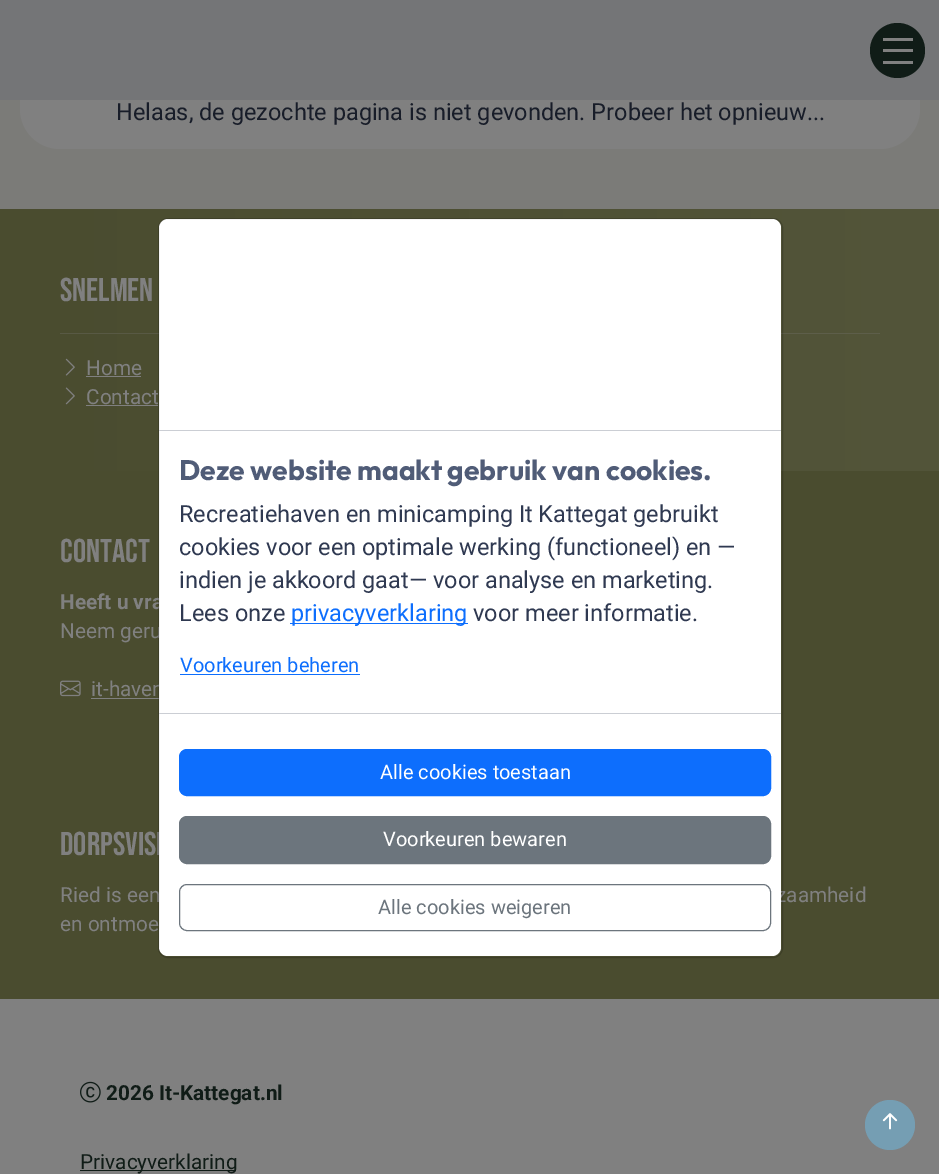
%!PS
<< /PageSize [939 1174] /PageUsesTransparency true >> setpagedevice
/mt/moveto load def
/li/lineto load def
/cp/closepath load def
/fl/fill load def
/st/stroke load def
/gs/gsave load def
/gr/grestore load def
/co { dup -16 bitshift 255 div exch dup -8 bitshift 255 and 255 div exch 255 and 255 div setrgbcolor } def
/fn { [ exch dup neg 0 0 3 -1 roll 0 0 ] selectfont } def
/tx { co fn moveto show } def
/bx { co rectfill } def
/al { dup .setfillconstantalpha .setstrokeconstantalpha } def
/ci { newpath 0 360 arc closepath } def
/rr { 5 dict begin { /r /h /w /y /x } { exch def } forall
  x r add y moveto x w add y 2 copy h add r arct x w add y h add x 1 index r arct
  x y h add x y r arct x y 2 copy exch w add exch r arct closepath end } def
/im { 5 dict begin { /h /w /y /x /name } { exch def } forall
  gsave x y translate w h scale
  w h 8 [w 0 0 h 0 0] name (r) file false 3 colorimage grestore end } def
0 .pushpdf14devicefilter
0 1174 translate 1 -1 scale
4 setmiterlimit
0 0 939 1174 16#7B7B78 bx
16#808080 co
20 34 900 115 40 rr fl
0 0 939 100 16#747577 bx
16#101C17 co
897.5 50.5 27.5 ci fl
883 38 30 3 16#808080 bx
883 49 30 3 16#808080 bx
883 61 30 3 16#808080 bx
gs 0 209 mt 939 209 li 939 471 li 0 471 li cp clip newpath
<< /ShadingType 2 /ColorSpace /DeviceRGB /Coords [0 340 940 340] /Extend [true true] /Function << /FunctionType 2 /Domain [0 1] /C0 [.29 .298 .184] /C1 [.325 .333 .227] /N 1 >> >> shfill gr
gs 60 333 mt 880 333 li 880 334 li 60 334 li cp clip newpath
<< /ShadingType 2 /ColorSpace /DeviceRGB /Coords [0 340 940 340] /Extend [true true] /Function << /FunctionType 2 /Domain [0 1] /C0 [.345 .349 .263] /C1 [.369 .376 .298] /N 1 >> >> shfill gr
(media/1.raw) 65 358 10 18 im
86 376 55 1 16#808080 bx
(media/2.raw) 65 387 10 18 im
86 405 72 1 16#808080 bx
0 471 939 528 16#4A4C2F bx
(media/3.raw) 60 680 21 17 im
91 698 68 1 16#808080 bx
0 999 939 175 16#808080 bx
(media/4.raw) 80 1081 21 22 im
80 1170 156 1 16#101C17 bx
16#759EB3 co
890 1125 25 ci fl
(media/5.raw) 882 1113 16 17 im
(Helaas, de gezochte pagina is niet gevonden. Probeer het opnieuw...) 116 120 /Roboto-Regular 23.5 16#181D29 tx
(Snelmen) 60 301 /BebasNeue-Regular 33 16#808080 tx
(Home) 86 375 /Roboto-Regular 20.75 16#808080 tx
(Contact) 86 404 /Roboto-Regular 20.75 16#808080 tx
(Contact) 60 562 /BebasNeue-Regular 33 16#808080 tx
(Heeft u vra) 60 609 /Roboto-Bold 20.75 16#808080 tx
(Neem geru) 60 638 /Roboto-Regular 20.75 16#808080 tx
(it-haven) 91 696 /Roboto-Regular 20.75 16#808080 tx
(Dorpsvisi) 60 855 /BebasNeue-Regular 33 16#808080 tx
(Ried is een) 60 902 /Roboto-Regular 20.75 16#808080 tx
(zaamheid) 776 902 /Roboto-Regular 20.75 16#808080 tx
(en ontmoe) 60 931 /Roboto-Regular 20.75 16#808080 tx
(2026 It-Kattegat.nl) 106 1100 /Roboto-Bold 20.75 16#101C17 tx
(Privacyverklaring) 80 1169 /Roboto-Regular 20.75 16#101C17 tx
16#FFFFFF co
159 219 622 737 9 rr fl
0.18 al
16#000000 co
158.5 218.5 624 739 9.5 rr st
1 al
159 430 622 1 16#CBCED4 bx
(Deze website maakt gebruik van cookies.) 179 480 /Outfit-Bold 28.25 16#505C77 tx
(Recreatiehaven en minicamping It Kattegat gebruikt) 179 522 /Roboto-Regular 23.5 16#2F3951 tx
(cookies voor een optimale werking \(functioneel\) en —) 179 555 /Roboto-Regular 23.5 16#2F3951 tx
(indien je akkoord gaat— voor analyse en marketing.) 179 588 /Roboto-Regular 23.5 16#2F3951 tx
(Lees onze) 179 621 /Roboto-Regular 23.5 16#2F3951 tx
290 623 178 1 16#0D6EFD bx
(privacyverklaring) 291 621 /Roboto-Regular 23.5 16#0D6EFD tx
(voor meer informatie.) 473 621 /Roboto-Regular 23.5 16#2F3951 tx
(Voorkeuren beheren) 180 672 /Roboto-Regular 20 16#0D6EFD tx
180 674 180 1 16#0D6EFD bx
159 713 622 1 16#CBCED4 bx
16#0D6EFD co
179.5 749.5 591 46 7.5 rr gs fl gr
st
(Alle cookies toestaan) 380 779 /Roboto-Regular 20 16#FFFFFF tx
16#6C757D co
179.5 816.5 591 47 7.5 rr gs fl gr
st
(Voorkeuren bewaren) 383 846 /Roboto-Regular 20 16#FFFFFF tx
16#6C757D co
179.5 884.5 591 46 7.5 rr st
(Alle cookies weigeren) 378 914 /Roboto-Regular 20 16#6C757D tx
.poppdf14devicefilter showpage
